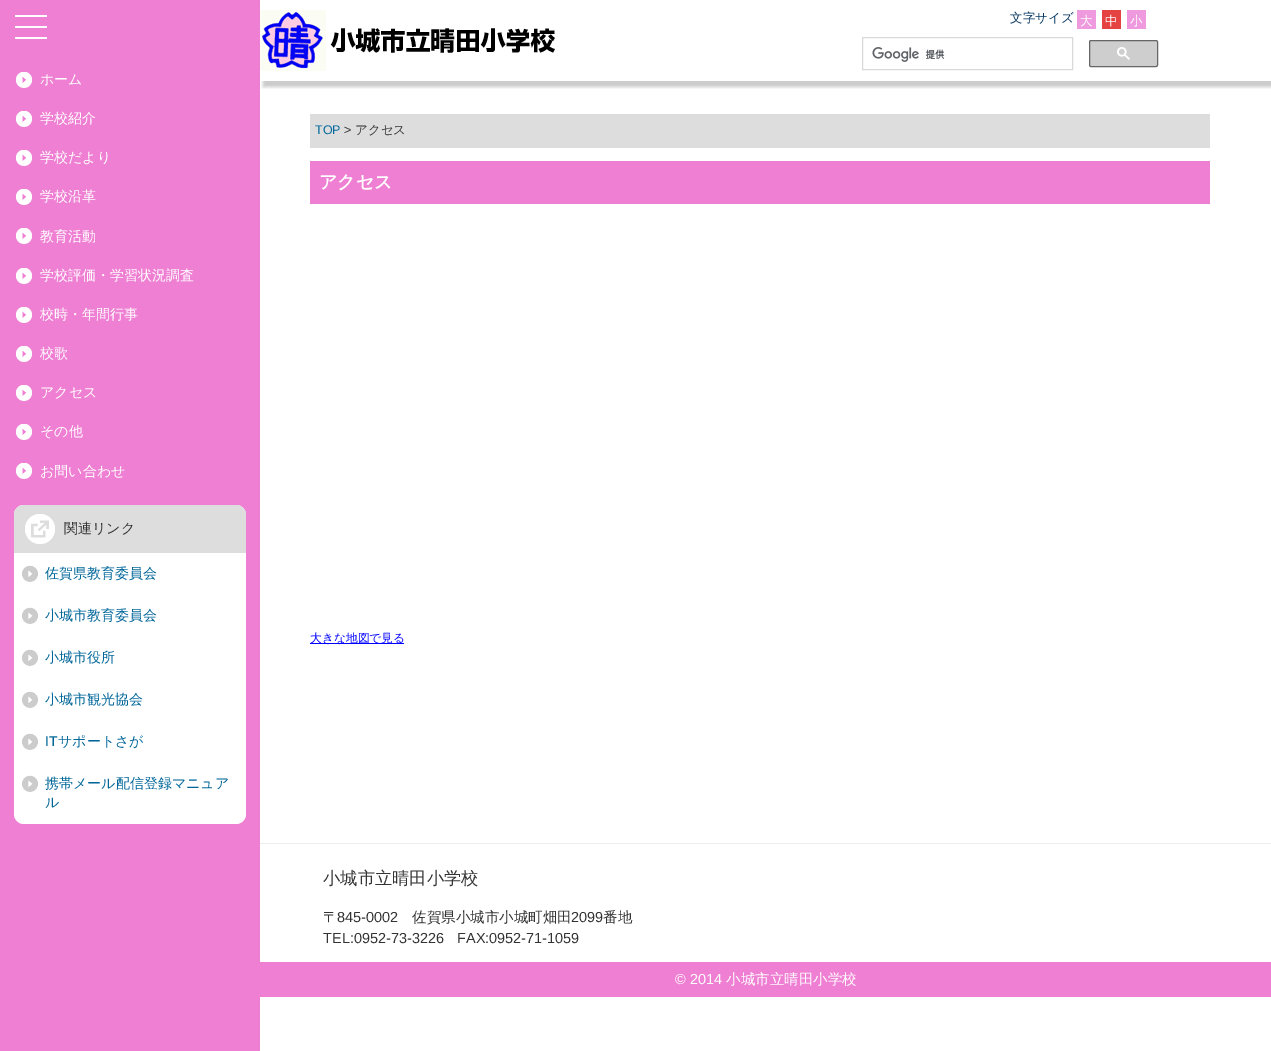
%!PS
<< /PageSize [1271 1051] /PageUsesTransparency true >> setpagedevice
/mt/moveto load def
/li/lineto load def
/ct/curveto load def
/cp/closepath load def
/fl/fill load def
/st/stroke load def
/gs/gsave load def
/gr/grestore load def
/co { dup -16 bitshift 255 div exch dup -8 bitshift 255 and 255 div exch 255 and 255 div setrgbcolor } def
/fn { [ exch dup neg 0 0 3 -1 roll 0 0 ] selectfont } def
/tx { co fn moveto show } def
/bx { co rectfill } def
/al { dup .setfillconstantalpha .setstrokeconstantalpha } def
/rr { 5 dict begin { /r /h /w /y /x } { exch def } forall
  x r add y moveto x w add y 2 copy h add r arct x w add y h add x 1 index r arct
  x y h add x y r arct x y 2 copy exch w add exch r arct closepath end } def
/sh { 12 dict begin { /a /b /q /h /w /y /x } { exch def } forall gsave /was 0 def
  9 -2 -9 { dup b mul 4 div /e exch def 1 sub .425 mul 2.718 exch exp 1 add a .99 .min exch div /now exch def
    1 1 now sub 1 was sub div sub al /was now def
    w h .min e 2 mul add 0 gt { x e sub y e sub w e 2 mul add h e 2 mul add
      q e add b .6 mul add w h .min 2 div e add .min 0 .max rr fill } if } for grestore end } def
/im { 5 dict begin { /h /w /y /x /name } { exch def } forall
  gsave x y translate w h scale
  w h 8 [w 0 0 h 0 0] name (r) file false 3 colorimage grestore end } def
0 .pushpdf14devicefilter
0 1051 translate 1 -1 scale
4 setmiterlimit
0 0 1271 1051 16#FFFFFF bx
0 0 260 1051 16#EF7FD2 bx
15 15 32 2 16#FFFFFF bx
15 26 32 2 16#FFFFFF bx
15 37 32 2 16#FFFFFF bx
gs
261 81 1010 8 rectclip
16#000000 co
263 12 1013 75 0 1.5 .2 sh
gr
(media/1.raw) 260 10 295 61 im
1077 10 19 19 16#EF9ADF bx
1102 10 19 19 16#E54242 bx
1127 10 19 19 16#EF9ADF bx
16#D9D9D9 co
862.5 37.5 210 32 rectstroke
(media/2.raw) 872 47 73 15 im
16#CECECE co
1089.5 40.5 68 26 1.5 rr gs fl gr
16#666666 co
st
(media/3.raw) 1117 47 13 13 im
310 114 900 34 16#DDDDDD bx
310 161 900 43 16#EF7FD2 bx
310 643 94 1 16#0000FF bx
260 843 1011 1 16#EEEEEE bx
260 962 1011 35 16#EF7FD2 bx
(media/4.raw) 16 72 16 16 im
(media/4.raw) 16 111 16 16 im
(media/4.raw) 16 150 16 16 im
(media/4.raw) 16 189 16 16 im
(media/4.raw) 16 228 16 16 im
(media/4.raw) 16 268 16 16 im
(media/4.raw) 16 307 16 16 im
(media/4.raw) 16 346 16 16 im
(media/4.raw) 16 385 16 16 im
(media/4.raw) 16 424 16 16 im
(media/4.raw) 16 463 16 16 im
16#FFFFFF co
14 505 232 319 10 rr fl
16#DDDDDD co
24 505 mt 236 505 li 241.5 505 246 509.5 246 515 ct 246 553 li 14 553 li 14 515 li 14 509.5 18.5 505 24 505 ct cp fl
(media/5.raw) 25 514 30 30 im
(media/6.raw) 22 565 16 17 im
(media/6.raw) 22 607 16 17 im
(media/6.raw) 22 649 16 17 im
(media/6.raw) 22 691 16 17 im
(media/6.raw) 22 733 16 17 im
(media/6.raw) 22 775 16 17 im
(文字サイズ) 1010 22 /WenQuanYiZenHei-Medium 12.5 16#033560 tx
(大) 1080 25 /WenQuanYiZenHei-Medium 12.5 16#FFFFFF tx
(中) 1105 25 /WenQuanYiZenHei-Medium 12.5 16#FFFFFF tx
(小) 1130 25 /WenQuanYiZenHei-Medium 12.5 16#FFFFFF tx
(TOP) 315 134 /LiberationSans-Regular 12.5 16#006699 tx
(>) 344 134 /LiberationSans-Regular 12.5 16#333333 tx
(アクセス) 355 134 /WenQuanYiZenHei-Medium 12.5 16#333333 tx
(アクセス) 319 188 /WenQuanYiZenHei-Bold 18 16#FFFFFF tx
(大きな地図で見る) 310 642 /WenQuanYiZenHei-Medium 11.75 16#0000FF tx
(小城市立晴田小学校) 323 884 /WenQuanYiZenHei-Medium 17.25 16#333333 tx
(〒) 323 922 /WenQuanYiZenHei-Medium 14.5 16#333333 tx
(845-0002) 337 922 /LiberationSans-Regular 14.5 16#333333 tx
(佐賀県小城市小城町畑田) 412 922 /WenQuanYiZenHei-Medium 14.5 16#333333 tx
(2099) 571 922 /LiberationSans-Regular 14.5 16#333333 tx
(番地) 603 922 /WenQuanYiZenHei-Medium 14.5 16#333333 tx
(TEL:0952-73-3226) 323 943 /LiberationSans-Regular 14.5 16#333333 tx
(FAX:0952-71-1059) 457 943 /LiberationSans-Regular 14.5 16#333333 tx
(© 2014) 675 984 /LiberationSans-Regular 14.5 16#FFFFFF tx
(小城市立晴田小学校) 726 984 /WenQuanYiZenHei-Medium 14.5 16#FFFFFF tx
(ホーム) 40 84 /WenQuanYiZenHei-Medium 14 16#FFFFFF tx
(学校紹介) 40 123 /WenQuanYiZenHei-Medium 14 16#FFFFFF tx
(学校だより) 40 162 /WenQuanYiZenHei-Medium 14 16#FFFFFF tx
(学校沿革) 40 201 /WenQuanYiZenHei-Medium 14 16#FFFFFF tx
(教育活動) 40 241 /WenQuanYiZenHei-Medium 14 16#FFFFFF tx
(学校評価・学習状況調査) 40 280 /WenQuanYiZenHei-Medium 14 16#FFFFFF tx
(校時・年間行事) 40 319 /WenQuanYiZenHei-Medium 14 16#FFFFFF tx
(校歌) 40 358 /WenQuanYiZenHei-Medium 14 16#FFFFFF tx
(アクセス) 40 397 /WenQuanYiZenHei-Medium 14 16#FFFFFF tx
(その他) 40 436 /WenQuanYiZenHei-Medium 14 16#FFFFFF tx
(お問い合わせ) 40 476 /WenQuanYiZenHei-Medium 14 16#FFFFFF tx
(関連リンク) 64 533 /WenQuanYiZenHei-Medium 14 16#333333 tx
(佐賀県教育委員会) 45 578 /WenQuanYiZenHei-Medium 14 16#006699 tx
(小城市教育委員会) 45 620 /WenQuanYiZenHei-Medium 14 16#006699 tx
(小城市役所) 45 662 /WenQuanYiZenHei-Medium 14 16#006699 tx
(小城市観光協会) 45 704 /WenQuanYiZenHei-Medium 14 16#006699 tx
(IT) 45 746 /LiberationSans-Regular 14 16#006699 tx
(サポートさが) 58 746 /WenQuanYiZenHei-Medium 14 16#006699 tx
(携帯メール配信登録マニュア) 45 788 /WenQuanYiZenHei-Medium 14 16#006699 tx
(ル) 45 807 /WenQuanYiZenHei-Medium 14 16#006699 tx
.poppdf14devicefilter showpage
